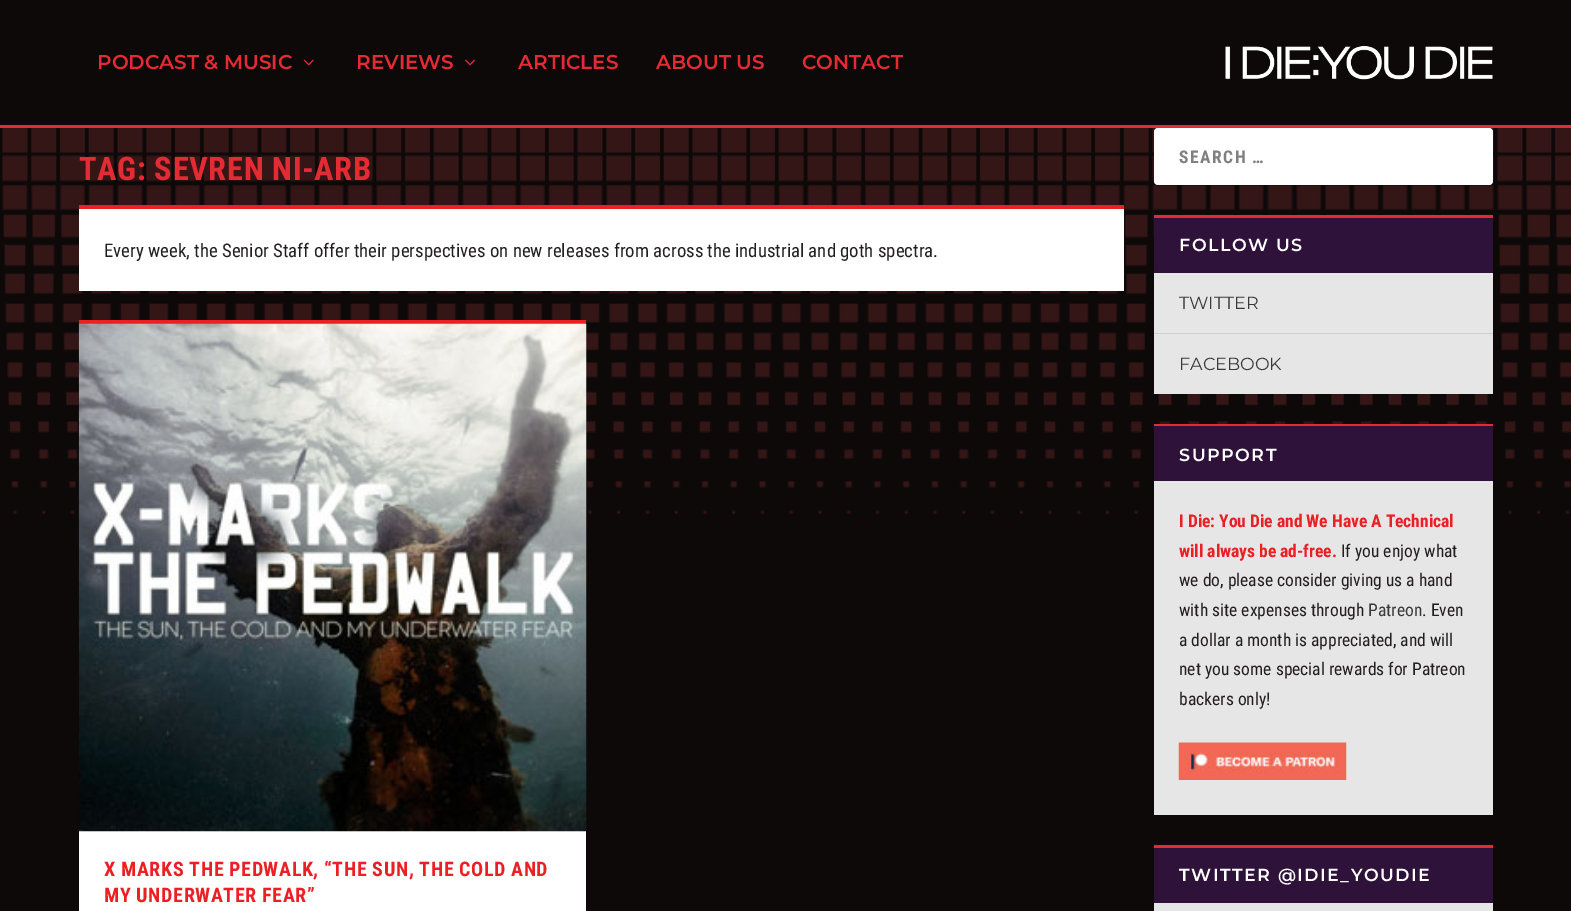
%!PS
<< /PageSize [1571 911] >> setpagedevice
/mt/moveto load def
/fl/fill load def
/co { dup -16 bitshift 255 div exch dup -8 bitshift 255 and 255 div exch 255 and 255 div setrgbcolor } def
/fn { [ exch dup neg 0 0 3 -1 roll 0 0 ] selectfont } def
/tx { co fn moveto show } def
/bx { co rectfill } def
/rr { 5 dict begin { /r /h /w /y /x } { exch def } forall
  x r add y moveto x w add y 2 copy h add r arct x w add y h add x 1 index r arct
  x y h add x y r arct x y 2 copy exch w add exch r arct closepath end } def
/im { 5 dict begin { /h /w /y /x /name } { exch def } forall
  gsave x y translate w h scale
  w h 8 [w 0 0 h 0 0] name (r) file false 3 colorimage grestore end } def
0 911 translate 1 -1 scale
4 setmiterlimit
0 0 1571 911 16#0E0909 bx
(media/1.raw) 2 128 1569 386 im
0 125 1571 3 16#E42A33 bx
(media/2.raw) 303 59 11 7 im
(media/3.raw) 465 59 10 7 im
(media/4.raw) 1225 46 268 34 im
79 209 1045 82 16#FFFFFF bx
79 205 1045 4 16#EC1F24 bx
79 831 507 80 16#FFFFFF bx
79 320 507 4 16#EC1F24 bx
(media/5.raw) 78 323 509 509 im
16#FFFFFF co
1154 128 339 57 4 rr fl
1154 273 339 121 16#E6E6E6 bx
1154 215 339 3 16#E42A33 bx
1154 218 339 55 16#2E123A bx
1154 333 339 1 16#CFCFCF bx
1154 481 339 334 16#E6E6E6 bx
1154 424 339 2 16#E42A33 bx
1154 426 339 55 16#2E123A bx
(media/6.raw) 1178 742 169 38 im
1154 903 339 8 16#E6E6E6 bx
1154 845 339 3 16#E42A33 bx
1154 848 339 55 16#2E123A bx
(PODCAST & MUSIC) 97 69 /Montserrat-Thin 20 16#E42A33 tx
(REVIEWS) 356 69 /Montserrat-Thin 20 16#E42A33 tx
(ARTICLES) 518 69 /Montserrat-Thin 20 16#E42A33 tx
(ABOUT US) 656 69 /Montserrat-Thin 20 16#E42A33 tx
(CONTACT) 802 69 /Montserrat-Thin 20 16#E42A33 tx
/RobotoCondensed-Bold 32.5 fn
79 180 mt .6 0 (TAG: SEVREN NI-ARB) ashow
(Every week, the Senior Staff offer their perspectives on new releases from across the industrial and goth spectra.) 104 257 /RobotoCondensed-Regular 18.75 16#231F20 tx
/RobotoCondensed-Bold 20 fn
16#EC1F24 co
104 876 mt .6 0 (X MARKS THE PEDWALK, “THE SUN, THE COLD AND) ashow
104 902 mt .6 0 (MY UNDERWATER FEAR”) ashow
/RobotoCondensed-Bold 17.5 fn
16#808080 co
1179 163 mt 1.5 0 (SEARCH …) ashow
/Montserrat-Thin 17.5 fn
16#FFFFFF co
1179 251 mt 1.5 0 (FOLLOW US) ashow
(TWITTER) 1179 309 /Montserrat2-Thin 17.5 16#3A3A3A tx
(FACEBOOK) 1179 370 /Montserrat2-Thin 17.5 16#3A3A3A tx
/Montserrat-Thin 17.5 fn
16#FFFFFF co
1179 461 mt 1.5 0 (SUPPORT) ashow
(I Die: You Die and We Have A Technical) 1179 527 /RobotoCondensed-Bold 17.5 16#EC1F24 tx
(will always be ad-free.) 1179 557 /RobotoCondensed-Bold 17.5 16#EC1F24 tx
(If you enjoy what) 1341 557 /RobotoCondensed-Regular 17.5 16#231F20 tx
(we do, please consider giving us a hand) 1179 586 /RobotoCondensed-Regular 17.5 16#231F20 tx
(with site expenses through) 1179 616 /RobotoCondensed-Regular 17.5 16#231F20 tx
(Patreon) 1368 616 /RobotoCondensed-Regular 17.5 16#3A3A3A tx
(. Even) 1422 616 /RobotoCondensed-Regular 17.5 16#231F20 tx
(a dollar a month is appreciated, and will) 1179 646 /RobotoCondensed-Regular 17.5 16#231F20 tx
(net you some special rewards for Patreon) 1179 675 /RobotoCondensed-Regular 17.5 16#231F20 tx
(backers only!) 1179 705 /RobotoCondensed-Regular 17.5 16#231F20 tx
/Montserrat-Thin 17.5 fn
16#FFFFFF co
1179 881 mt 1.5 0 (TWITTER @IDIE_YOUDIE) ashow
showpage
